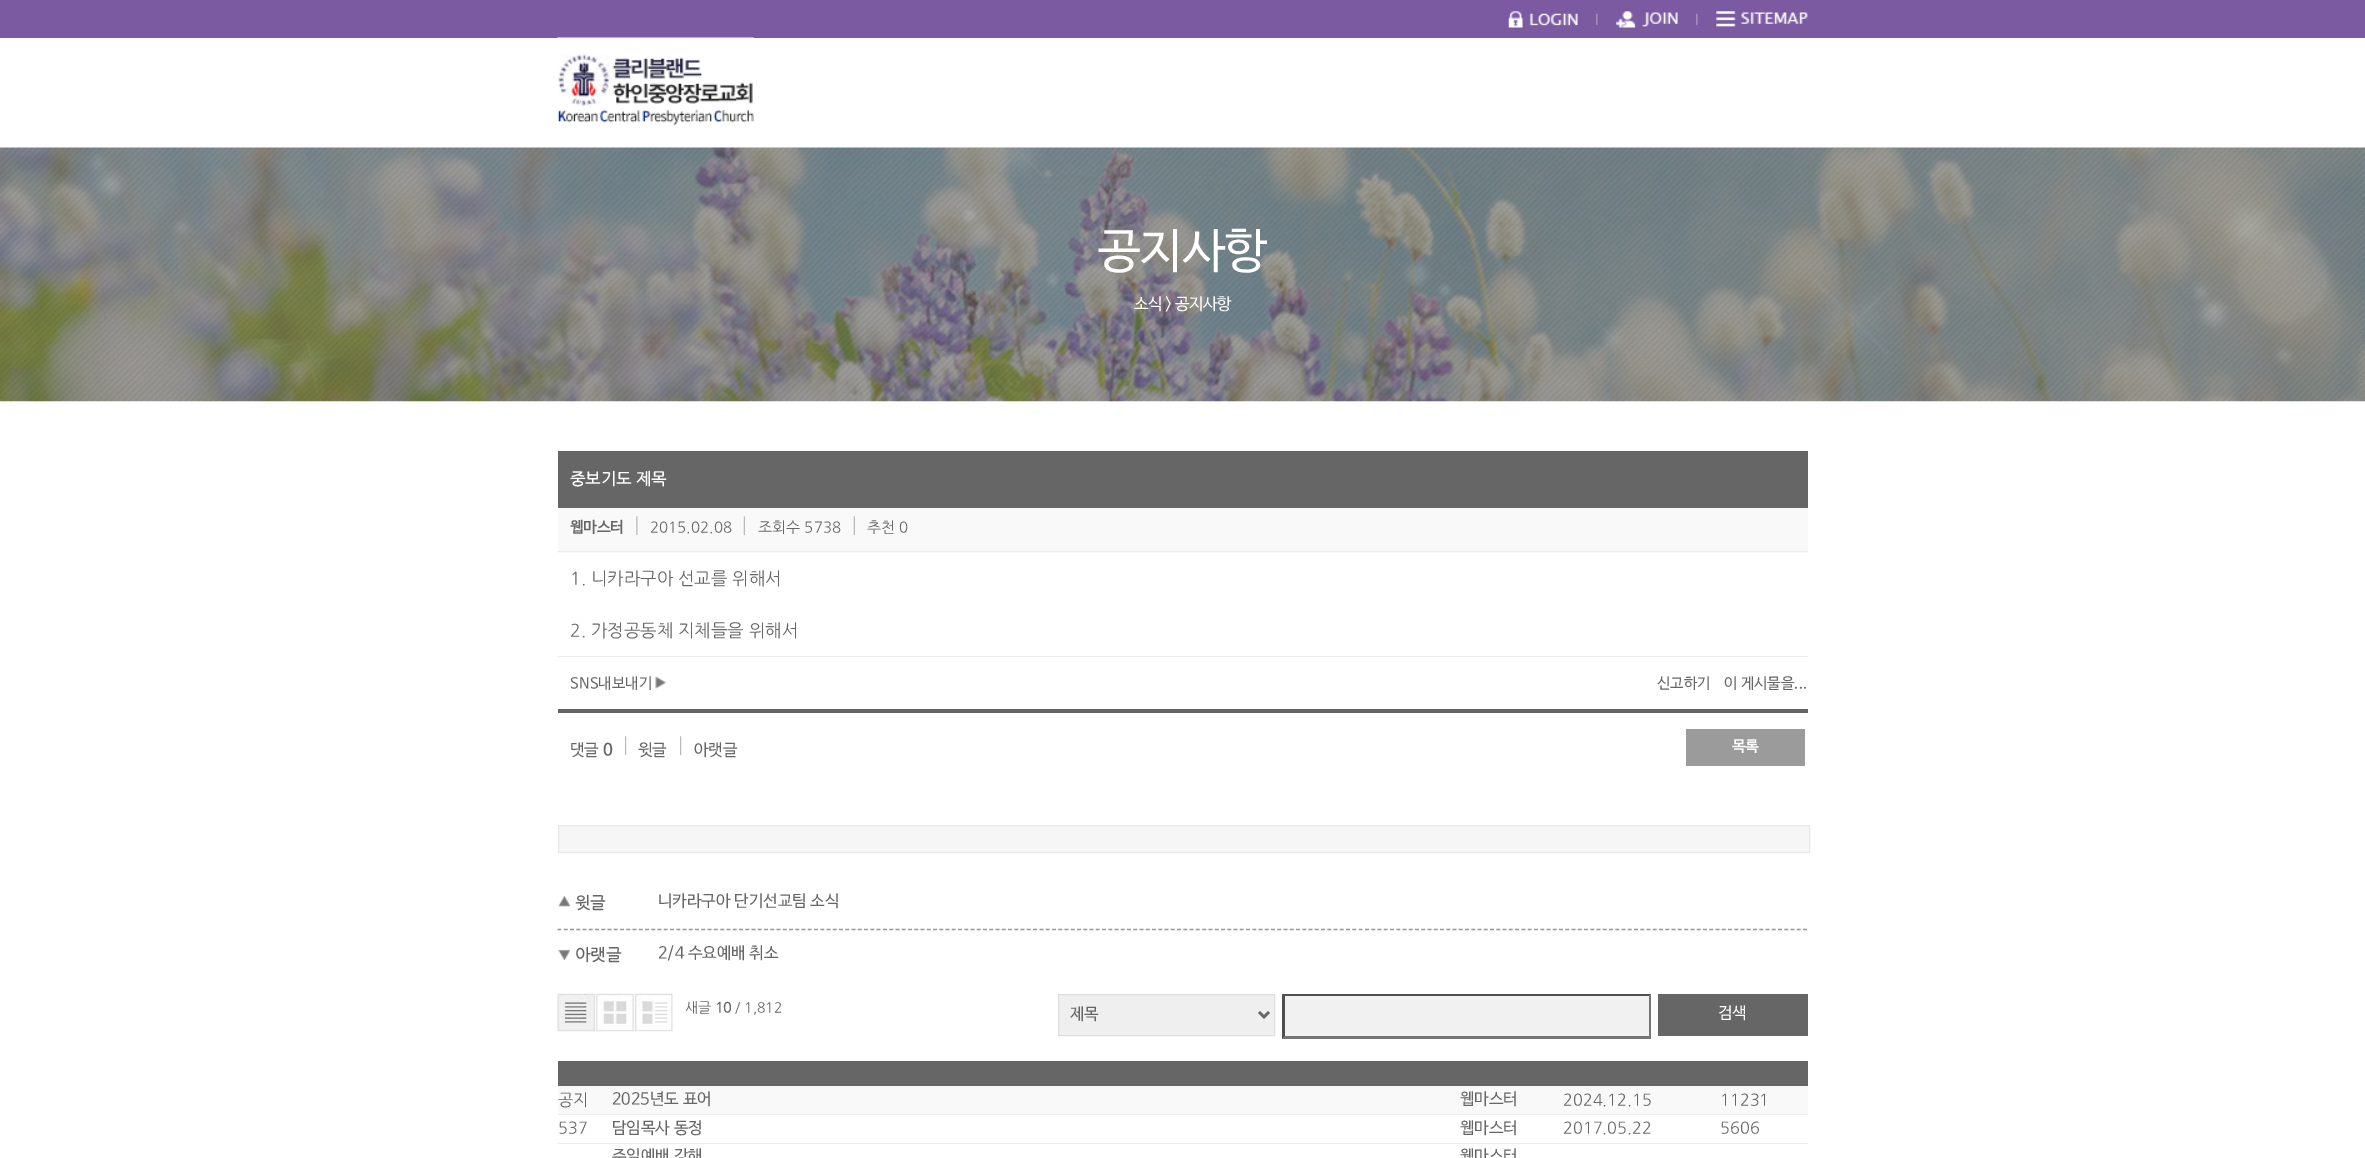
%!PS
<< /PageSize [2365 1158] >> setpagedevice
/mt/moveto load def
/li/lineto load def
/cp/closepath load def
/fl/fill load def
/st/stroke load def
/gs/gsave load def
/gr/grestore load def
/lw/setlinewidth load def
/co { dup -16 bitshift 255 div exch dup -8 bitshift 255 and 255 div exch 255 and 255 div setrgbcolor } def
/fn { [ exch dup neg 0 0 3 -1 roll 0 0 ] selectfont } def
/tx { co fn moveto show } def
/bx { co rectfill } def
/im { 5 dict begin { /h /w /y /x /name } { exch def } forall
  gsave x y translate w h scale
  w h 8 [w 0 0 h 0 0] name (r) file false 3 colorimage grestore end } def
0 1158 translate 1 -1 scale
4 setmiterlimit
0 0 2365 1158 16#FFFFFF bx
0 0 2365 38 16#7C5AA1 bx
(media/1.raw) 1508 11 70 17 im
(media/2.raw) 1596 13 2 13 im
(media/3.raw) 1616 11 62 17 im
(media/2.raw) 1696 13 2 13 im
(media/4.raw) 1716 11 92 16 im
(media/5.raw) 557 37 197 89 im
(media/6.raw) 0 147 2365 255 im
558 709 1250 4 16#666666 bx
558 451 1250 57 16#666666 bx
558 508 1250 45 16#F9F9F9 bx
558 551 1250 1 16#ECECEC bx
(media/7.raw) 636 516 2 19 im
(media/8.raw) 743 516 2 19 im
(media/8.raw) 853 516 2 19 im
558 656 1250 1 16#ECECEC bx
(media/9.raw) 655 676 12 13 im
(media/10.raw) 625 736 2 19 im
(media/10.raw) 680 736 2 19 im
1686 729 119 37 16#9B9B9B bx
16#F6F6F6 co
558.5 825.5 mt 1809.5 825.5 li 1809.5 852.5 li 558.5 852.5 li cp gs fl gr
16#E8E8E8 co
st
16#999999 co
1.2 lw
[3.75 2.51] 0 setdash
557.5 929.5 mt 1807.5 929.5 li st
(media/11.raw) 558 896 12 11 im
(media/12.raw) 558 949 12 11 im
(media/13.raw) 557 993 38 39 im
(media/14.raw) 596 993 38 39 im
(media/15.raw) 635 993 38 39 im
16#EFEFEF co
1058.5 994.5 mt 1274.5 994.5 li 1274.5 1035.5 li 1058.5 1035.5 li cp gs fl gr
16#DFDFDF co
1 lw
[] 0 setdash
st
16#666666 co
2.5 lw
1259 1012 mt 1264 1017 li 1269 1012 li st
1283 994 368 45 16#F1F1F1 bx
16#4F4F4F co
1282 994 mt 1651 994 li 1649 996 li 1285 996 li cp fl
16#767676 co
1651 994 mt 1651 1039 li 1649 1036 li 1649 996 li cp fl
1651 1039 mt 1282 1039 li 1285 1036 li 1649 1036 li cp fl
16#4F4F4F co
1282 1039 mt 1282 994 li 1285 996 li 1285 1036 li cp fl
1658 994 150 42 16#666666 bx
558 1061 1250 25 16#666666 bx
558 1086 1250 28 16#F9F9F9 bx
558 1114 1250 1 16#ECECEC bx
558 1143 1250 1 16#ECECEC bx
(공지사항) 1098 266 /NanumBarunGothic-Regular 47.5 16#FFFFFF tx
/NanumBarunGothic-Regular 16.25 fn
1134 309 mt -.5 0 (소식 > 공지사항) ashow
(중보기도 제목) 570 484 /NanumGothic-Bold 16.25 16#FFFFFF tx
(웹마스터) 570 532 /NanumBarunGothic-Bold 15 16#666666 tx
(2015.02.08) 650 532 /NanumGothic-Regular 15 16#666666 tx
(조회수 5738) 758 532 /NanumGothic-Regular 15 16#666666 tx
(추천 0) 867 532 /NanumGothic-Regular 15 16#666666 tx
(1. 니카라구아 선교를 위해서) 570 584 /NanumGothic-Regular 17.5 16#666666 tx
(2. 가정공동체 지체들을 위해서) 570 636 /NanumGothic-Regular 17.5 16#666666 tx
(SNS내보내기) 570 688 /NanumBarunGothic-Regular 15 16#666666 tx
(신고하기) 1657 688 /NanumBarunGothic-Regular 15 16#666666 tx
(이 게시물을...) 1724 688 /NanumBarunGothic-Regular 15 16#666666 tx
(댓글) 570 755 /NanumBarunGothic-Regular 16.25 16#666666 tx
(0) 603 755 /NanumBarunGothic-Bold 16.25 16#666666 tx
(윗글) 638 755 /NanumBarunGothic-Regular 16.25 16#666666 tx
(아랫글) 694 755 /NanumBarunGothic-Regular 16.25 16#666666 tx
(목록) 1732 751 /NanumBarunGothic-Bold 15 16#FFFFFF tx
(윗글) 575 908 /NanumGothic-Bold 16.25 16#666666 tx
(니카라구아 단기선교팀 소식) 658 906 /NanumBarunGothic-Regular 16.25 16#666666 tx
(아랫글) 575 960 /NanumGothic-Bold 16.25 16#666666 tx
(2/4 수요예배 취소) 658 958 /NanumBarunGothic-Regular 16.25 16#666666 tx
(새글) 685 1012 /NanumGothic-Regular 14 16#666666 tx
(10) 715 1012 /NanumGothic-Bold 14 16#666666 tx
(/ 1,812) 735 1012 /NanumGothic-Regular 14 16#666666 tx
(제목) 1070 1019 /NanumBarunGothic-Regular 16.25 16#666666 tx
(검색) 1718 1018 /NanumBarunGothic-Regular 16.25 16#FFFFFF tx
(공지) 558 1105 /NanumGothic-Regular 16.25 16#666666 tx
(2025년도 표어) 612 1104 /NanumBarunGothic-Regular 16.25 16#666666 tx
(웹마스터) 1460 1104 /NanumBarunGothic-Regular 16.25 16#666666 tx
(2024.12.15) 1563 1105 /NanumGothic-Regular 16.25 16#666666 tx
(11231) 1720 1105 /NanumGothic-Regular 16.25 16#666666 tx
(537) 558 1133 /NanumGothic-Regular 16.25 16#666666 tx
(담임목사 동정) 612 1133 /NanumBarunGothic-Regular 16.25 16#666666 tx
(웹마스터) 1460 1133 /NanumBarunGothic-Regular 16.25 16#666666 tx
(2017.05.22) 1563 1133 /NanumGothic-Regular 16.25 16#666666 tx
(5606) 1720 1133 /NanumGothic-Regular 16.25 16#666666 tx
(주일예배 강해) 612 1161 /NanumBarunGothic-Regular 16.25 16#666666 tx
(웹마스터) 1460 1161 /NanumBarunGothic-Regular 16.25 16#666666 tx
showpage
